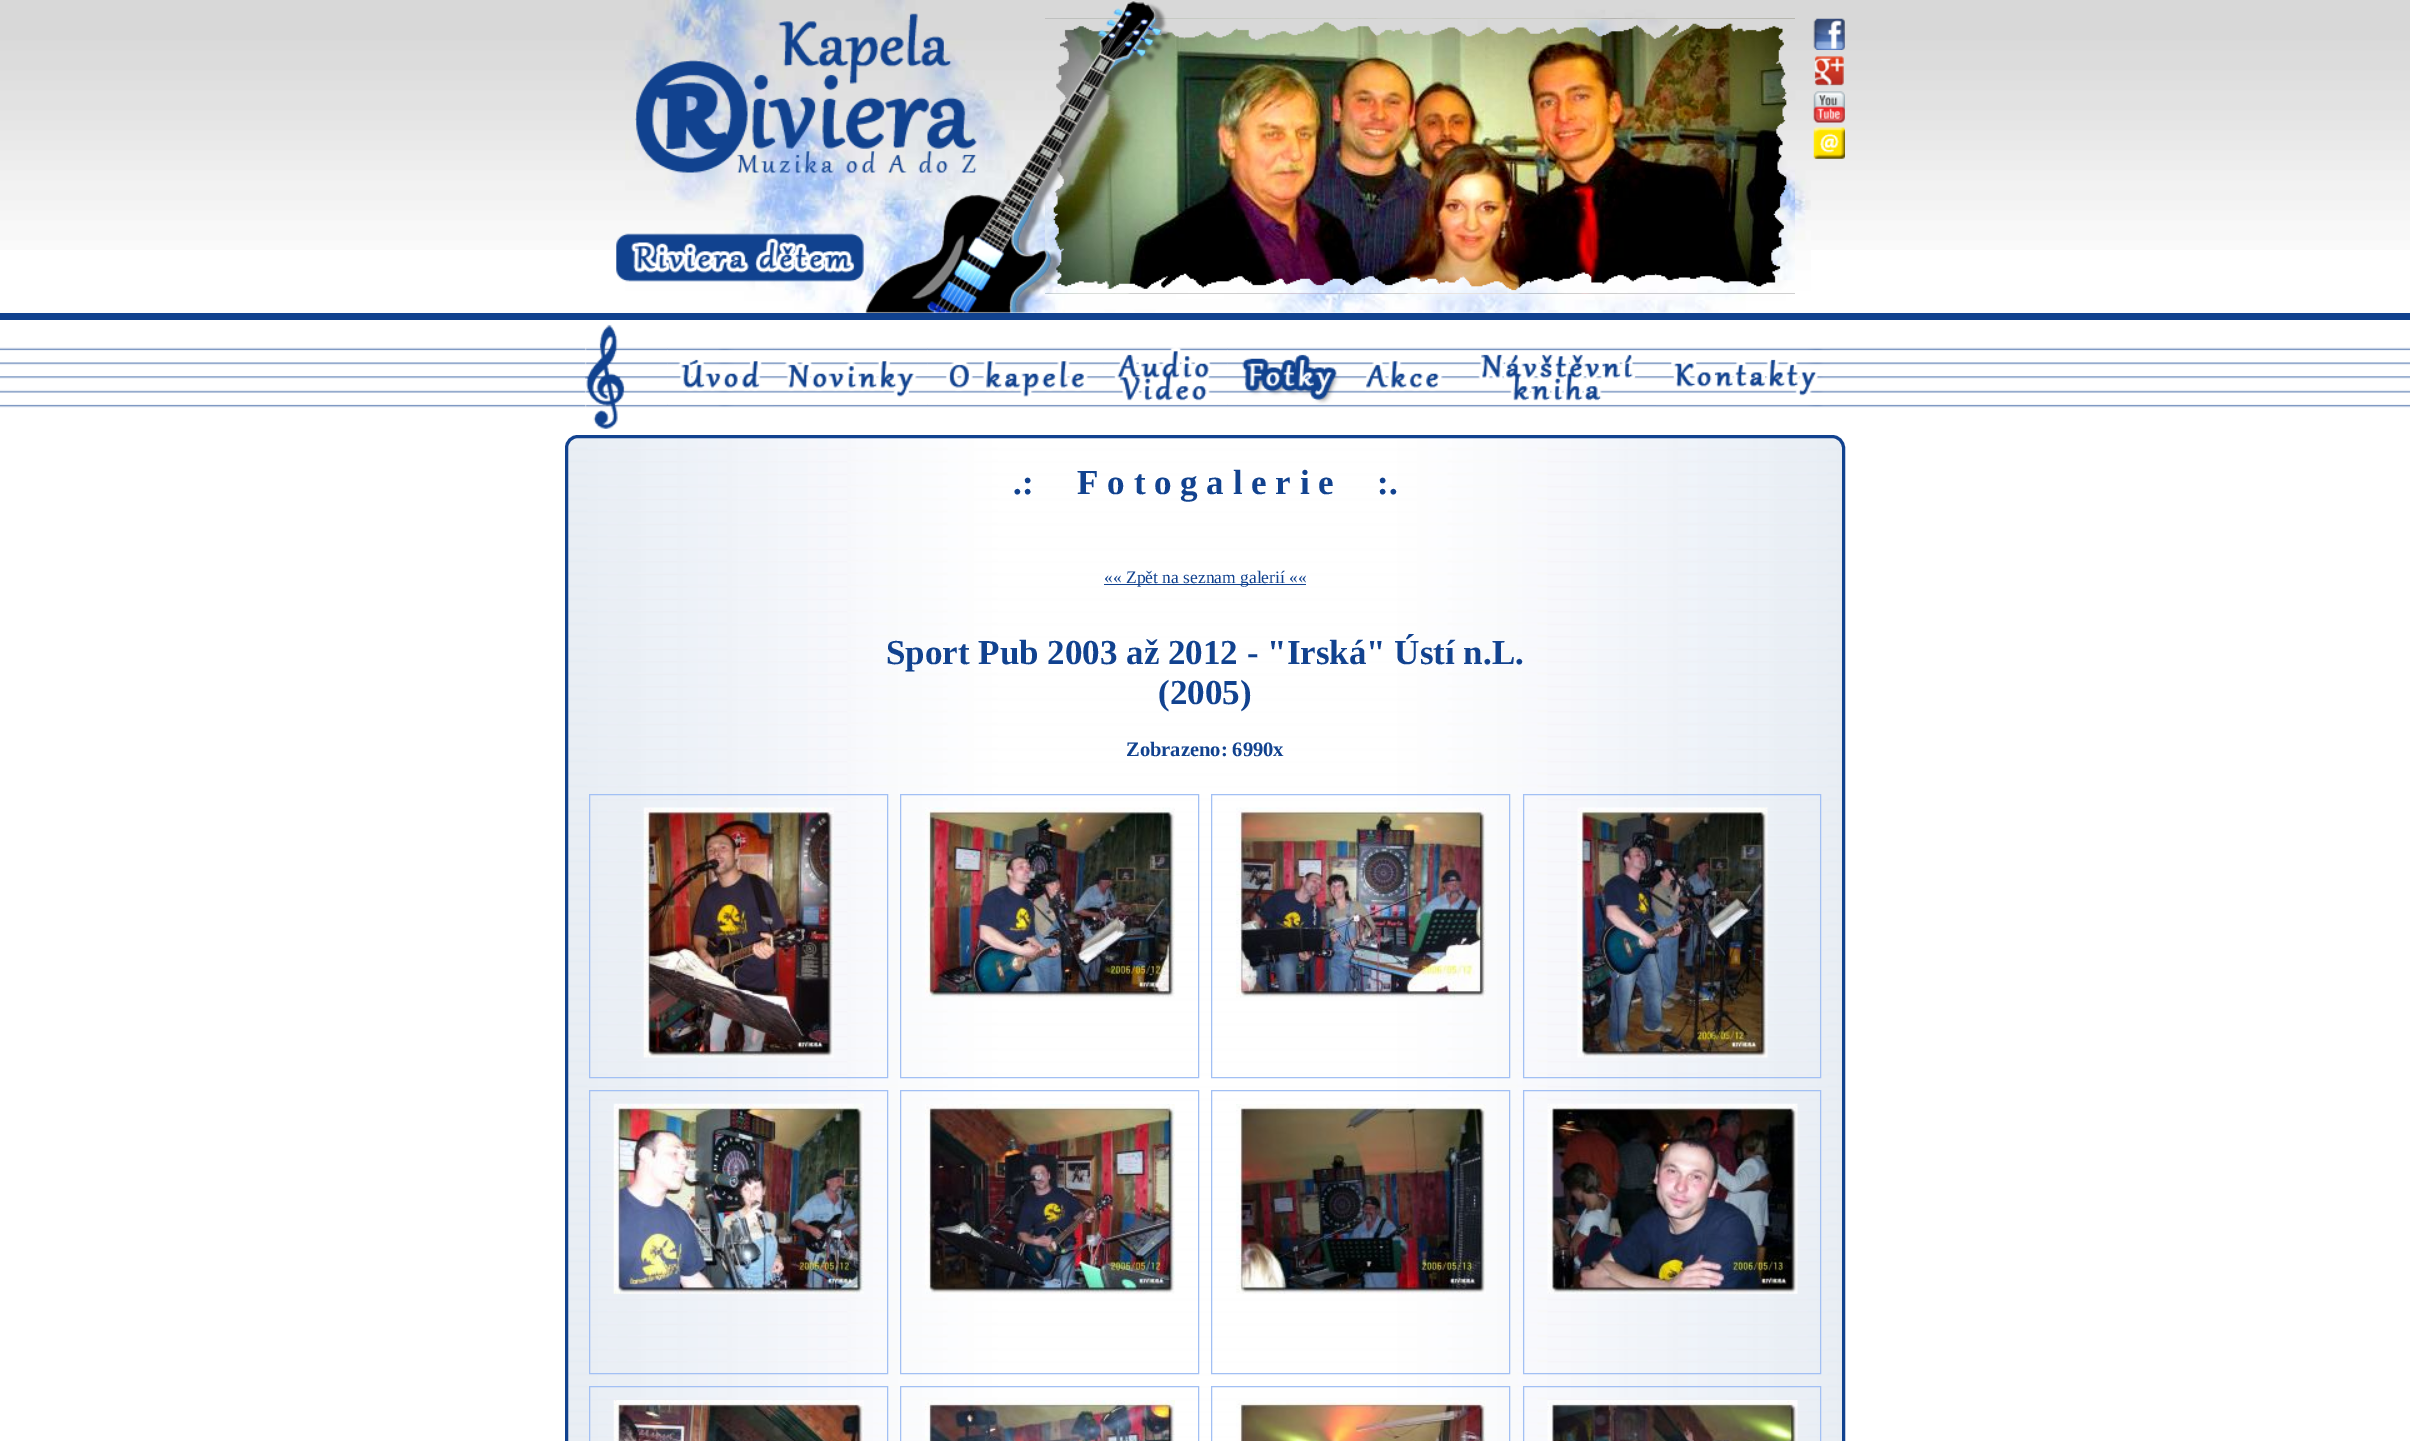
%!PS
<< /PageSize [2410 1441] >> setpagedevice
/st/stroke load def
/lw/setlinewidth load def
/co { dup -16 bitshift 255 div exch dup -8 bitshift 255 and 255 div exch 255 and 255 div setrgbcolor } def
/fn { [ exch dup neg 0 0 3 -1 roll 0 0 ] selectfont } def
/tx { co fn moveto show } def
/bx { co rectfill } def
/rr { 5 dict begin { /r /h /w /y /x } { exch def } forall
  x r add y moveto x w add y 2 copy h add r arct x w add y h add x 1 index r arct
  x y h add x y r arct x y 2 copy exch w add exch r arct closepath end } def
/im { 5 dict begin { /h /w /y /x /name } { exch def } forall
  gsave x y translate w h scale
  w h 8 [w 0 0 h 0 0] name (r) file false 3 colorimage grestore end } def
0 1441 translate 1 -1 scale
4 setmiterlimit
0 0 2410 1441 16#FFFFFF bx
(media/1.raw) 0 347 2410 61 im
(media/2.raw) 0 0 2410 250 im
0 313 2410 7 16#11428F bx
(media/3.raw) 625 0 1186 313 im
(media/6.raw) 1045 18 750 276 im
(media/7.raw) 1045 18 750 276 im
(media/5.raw) 865 0 306 313 im
(media/4.raw) 635 13 342 160 im
(media/8.raw) 1813 18 32 32 im
(media/9.raw) 1814 56 30 30 im
(media/10.raw) 1813 91 32 32 im
(media/11.raw) 1813 127 32 32 im
(media/12.raw) 616 233 248 49 im
(media/13.raw) 585 324 82 105 im
(media/14.raw) 668 348 106 59 im
(media/15.raw) 774 348 153 57 im
(media/16.raw) 928 348 176 57 im
(media/17.raw) 1104 347 123 58 im
(media/18.raw) 1228 348 119 57 im
(media/19.raw) 1347 348 112 57 im
(media/20.raw) 1459 348 197 57 im
(media/21.raw) 1656 348 174 59 im
(media/22.raw) 565 435 1280 1006 im
3 lw
566.5 436.5 1277 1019 11.5 rr st
1104 584 202 1 16#11428F bx
16#A2C0F4 co
1 lw
589.5 794.5 298 283 rectstroke
(media/23.raw) 643 807 191 251 im
900.5 794.5 298 283 rectstroke
(media/24.raw) 925 807 250 191 im
1211.5 794.5 298 283 rectstroke
(media/25.raw) 1236 807 250 191 im
1523.5 794.5 297 283 rectstroke
(media/26.raw) 1577 807 191 251 im
589.5 1090.5 298 283 rectstroke
(media/27.raw) 613 1103 251 191 im
900.5 1090.5 298 283 rectstroke
(media/28.raw) 925 1104 250 190 im
1211.5 1090.5 298 283 rectstroke
(media/29.raw) 1236 1104 250 190 im
1523.5 1090.5 297 283 rectstroke
(media/30.raw) 1547 1103 251 191 im
589.5 1386.5 298 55 rectstroke
(media/31.raw) 613 1400 251 41 im
900.5 1386.5 298 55 rectstroke
(media/32.raw) 925 1400 250 41 im
1211.5 1386.5 298 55 rectstroke
(media/33.raw) 1236 1400 250 41 im
1523.5 1386.5 297 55 rectstroke
(media/34.raw) 1547 1400 251 41 im
(.:     F o t o g a l e r i e     :.) 1013 494 /LiberationSerif-Bold 35 16#11428F tx
(«« Zpět na seznam galerií ««) 1104 583 /LiberationSerif-Regular 17.5 16#11428F tx
(Sport Pub 2003 až 2012 - "Irská" Ústí n.L.) 886 664 /LiberationSerif-Bold 35 16#11428F tx
(\(2005\)) 1158 704 /LiberationSerif-Bold 35 16#11428F tx
(Zobrazeno: 6990x) 1126 756 /LiberationSerif-Bold 20.5 16#11428F tx
showpage
